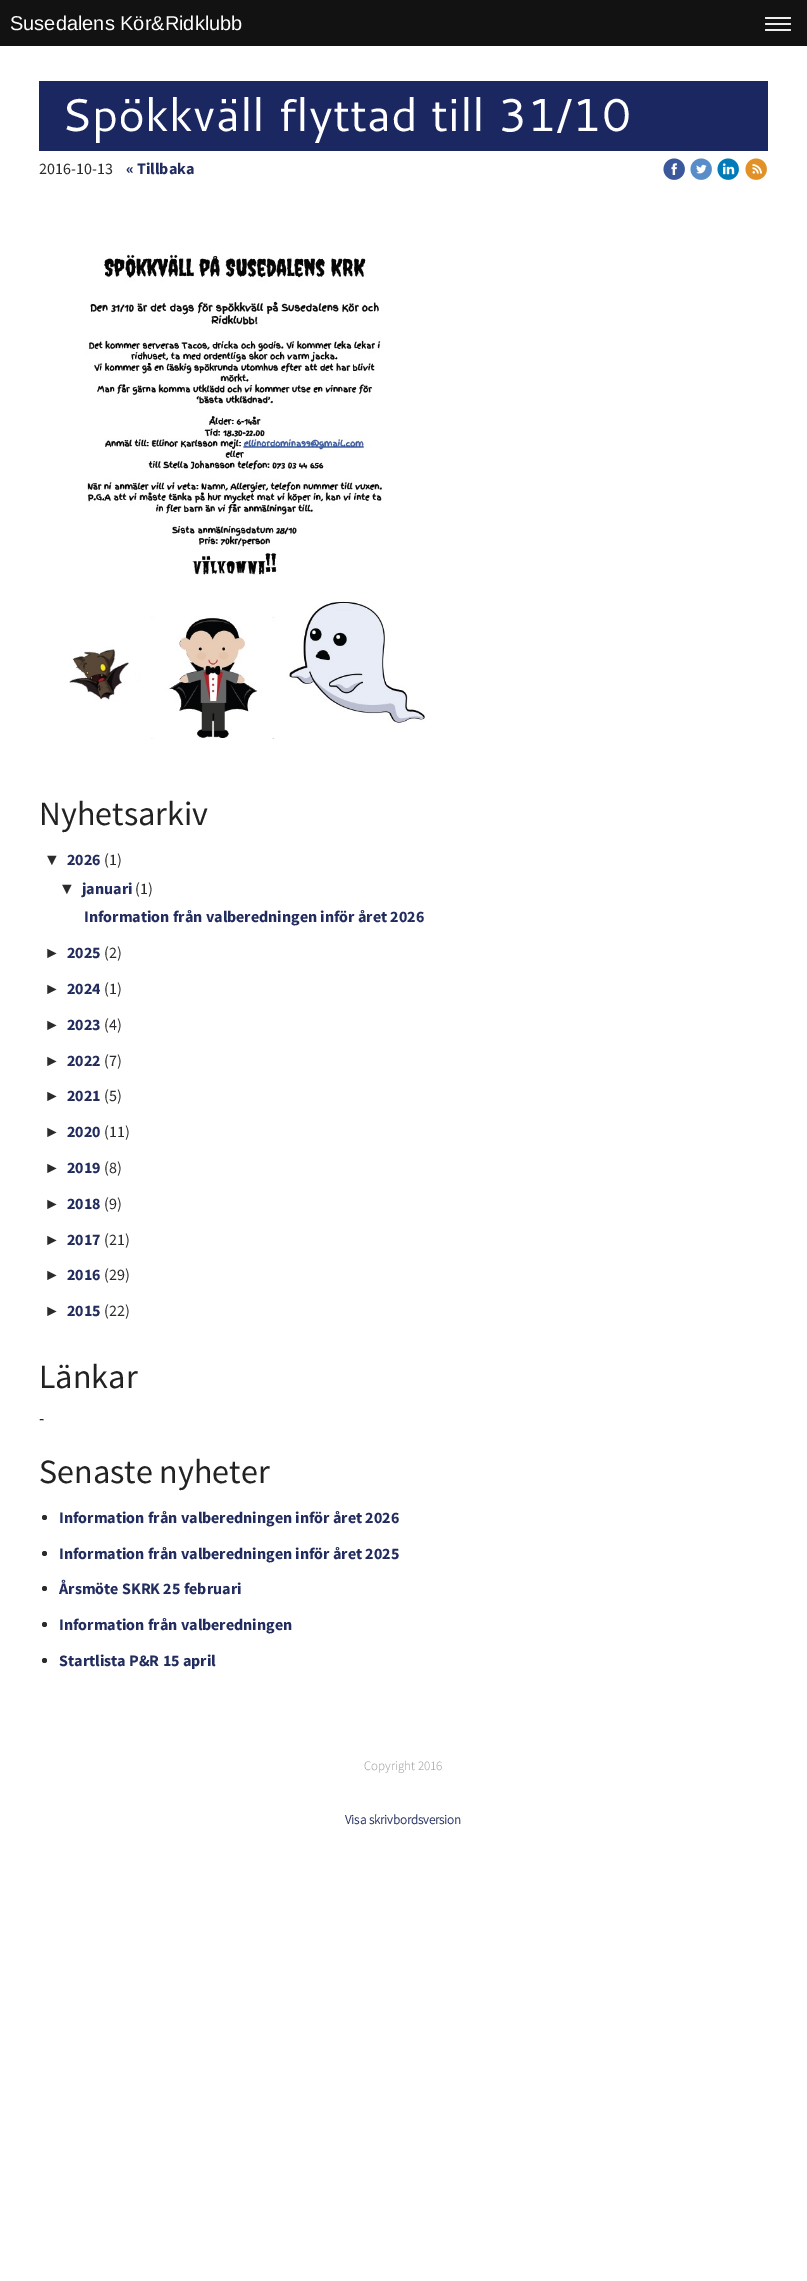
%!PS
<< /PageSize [807 2281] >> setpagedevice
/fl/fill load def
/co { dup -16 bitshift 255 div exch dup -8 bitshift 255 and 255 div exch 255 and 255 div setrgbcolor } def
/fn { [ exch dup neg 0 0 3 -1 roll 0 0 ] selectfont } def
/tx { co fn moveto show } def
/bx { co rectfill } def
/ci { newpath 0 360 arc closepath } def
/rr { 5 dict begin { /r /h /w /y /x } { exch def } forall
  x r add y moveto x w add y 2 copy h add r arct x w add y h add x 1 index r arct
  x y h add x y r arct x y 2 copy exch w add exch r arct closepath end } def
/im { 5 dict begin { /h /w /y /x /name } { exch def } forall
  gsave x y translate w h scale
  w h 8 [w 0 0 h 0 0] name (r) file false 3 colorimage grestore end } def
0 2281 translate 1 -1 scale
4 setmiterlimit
0 0 807 2281 16#FFFFFF bx
0 0 807 46 16#121212 bx
16#EEEEEE co
765 17 26 2 1 rr fl
765 23 26 2 1 rr fl
765 29 26 2 1 rr fl
39 81 729 70 16#1B2761 bx
(media/1.raw) 663 158 22 22 im
(media/2.raw) 690 158 22 22 im
(media/3.raw) 717 158 22 22 im
(media/4.raw) 745 158 22 22 im
(media/5.raw) 69 254 356 485 im
16#2B2B2B co
44.5 1517.5 2.5 ci fl
44.5 1553.5 2.5 ci fl
44.5 1588.5 2.5 ci fl
44.5 1624.5 2.5 ci fl
44.5 1660.5 2.5 ci fl
(Susedalens Kör&Ridklubb) 10 30 /LiberationSans-Regular 20 16#FFFFFF tx
(Spökkväll flyttad till 31/10) 61 131 /Cantarell-Regular 46 16#FFFFFF tx
(2016-10-13) 39 174 /SourceSansPro-Regular 16 16#2B2B2B tx
(« Tillbaka) 126 174 /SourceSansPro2-Bold 16 16#222C5E tx
(Nyhetsarkiv) 39 825 /SourceSansPro-Regular 34 16#222222 tx
(▼) 44 865 /LiberationSans-Regular 16 16#2B2B2B tx
(2026) 67 865 /SourceSansPro2-Bold 16 16#222C5E tx
(\(1\)) 104 865 /SourceSansPro-Regular 16 16#2B2B2B tx
(▼) 59 894 /LiberationSans-Regular 16 16#2B2B2B tx
(januari) 82 894 /SourceSansPro2-Bold 16 16#222C5E tx
(\(1\)) 135 894 /SourceSansPro-Regular 16 16#2B2B2B tx
(Information från valberedningen inför året 2026) 84 922 /SourceSansPro2-Bold 16 16#222C5E tx
(►) 44 958 /LiberationSans-Regular 16 16#2B2B2B tx
(2025) 67 958 /SourceSansPro2-Bold 16 16#222C5E tx
(\(2\)) 104 958 /SourceSansPro-Regular 16 16#2B2B2B tx
(►) 44 994 /LiberationSans-Regular 16 16#2B2B2B tx
(2024) 67 994 /SourceSansPro2-Bold 16 16#222C5E tx
(\(1\)) 104 994 /SourceSansPro-Regular 16 16#2B2B2B tx
(►) 44 1030 /LiberationSans-Regular 16 16#2B2B2B tx
(2023) 67 1030 /SourceSansPro2-Bold 16 16#222C5E tx
(\(4\)) 104 1030 /SourceSansPro-Regular 16 16#2B2B2B tx
(►) 44 1066 /LiberationSans-Regular 16 16#2B2B2B tx
(2022) 67 1066 /SourceSansPro2-Bold 16 16#222C5E tx
(\(7\)) 104 1066 /SourceSansPro-Regular 16 16#2B2B2B tx
(►) 44 1101 /LiberationSans-Regular 16 16#2B2B2B tx
(2021) 67 1101 /SourceSansPro2-Bold 16 16#222C5E tx
(\(5\)) 104 1101 /SourceSansPro-Regular 16 16#2B2B2B tx
(►) 44 1137 /LiberationSans-Regular 16 16#2B2B2B tx
(2020) 67 1137 /SourceSansPro2-Bold 16 16#222C5E tx
(\(11\)) 104 1137 /SourceSansPro-Regular 16 16#2B2B2B tx
(►) 44 1173 /LiberationSans-Regular 16 16#2B2B2B tx
(2019) 67 1173 /SourceSansPro2-Bold 16 16#222C5E tx
(\(8\)) 104 1173 /SourceSansPro-Regular 16 16#2B2B2B tx
(►) 44 1209 /LiberationSans-Regular 16 16#2B2B2B tx
(2018) 67 1209 /SourceSansPro2-Bold 16 16#222C5E tx
(\(9\)) 104 1209 /SourceSansPro-Regular 16 16#2B2B2B tx
(►) 44 1245 /LiberationSans-Regular 16 16#2B2B2B tx
(2017) 67 1245 /SourceSansPro2-Bold 16 16#222C5E tx
(\(21\)) 104 1245 /SourceSansPro-Regular 16 16#2B2B2B tx
(►) 44 1280 /LiberationSans-Regular 16 16#2B2B2B tx
(2016) 67 1280 /SourceSansPro2-Bold 16 16#222C5E tx
(\(29\)) 104 1280 /SourceSansPro-Regular 16 16#2B2B2B tx
(►) 44 1316 /LiberationSans-Regular 16 16#2B2B2B tx
(2015) 67 1316 /SourceSansPro2-Bold 16 16#222C5E tx
(\(22\)) 104 1316 /SourceSansPro-Regular 16 16#2B2B2B tx
(Länkar) 39 1388 /SourceSansPro-Regular 34 16#222222 tx
(-) 39 1424 /LiberationSans-Regular 16 16#222222 tx
(Senaste nyheter) 39 1483 /SourceSansPro-Regular 34 16#222222 tx
(Information från valberedningen inför året 2026) 59 1523 /SourceSansPro2-Bold 16 16#222C5E tx
(Information från valberedningen inför året 2025) 59 1559 /SourceSansPro2-Bold 16 16#222C5E tx
(Årsmöte SKRK 25 februari) 59 1594 /SourceSansPro2-Bold 16 16#222C5E tx
(Information från valberedningen) 59 1630 /SourceSansPro2-Bold 16 16#222C5E tx
(Startlista P&R 15 april) 59 1666 /SourceSansPro2-Bold 16 16#222C5E tx
(Copyright 2016) 364 1770 /SourceSansPro-Light 13 16#999999 tx
(Visa skrivbordsversion) 345 1824 /SourceSansPro-Bold 13 16#222C5E tx
showpage
